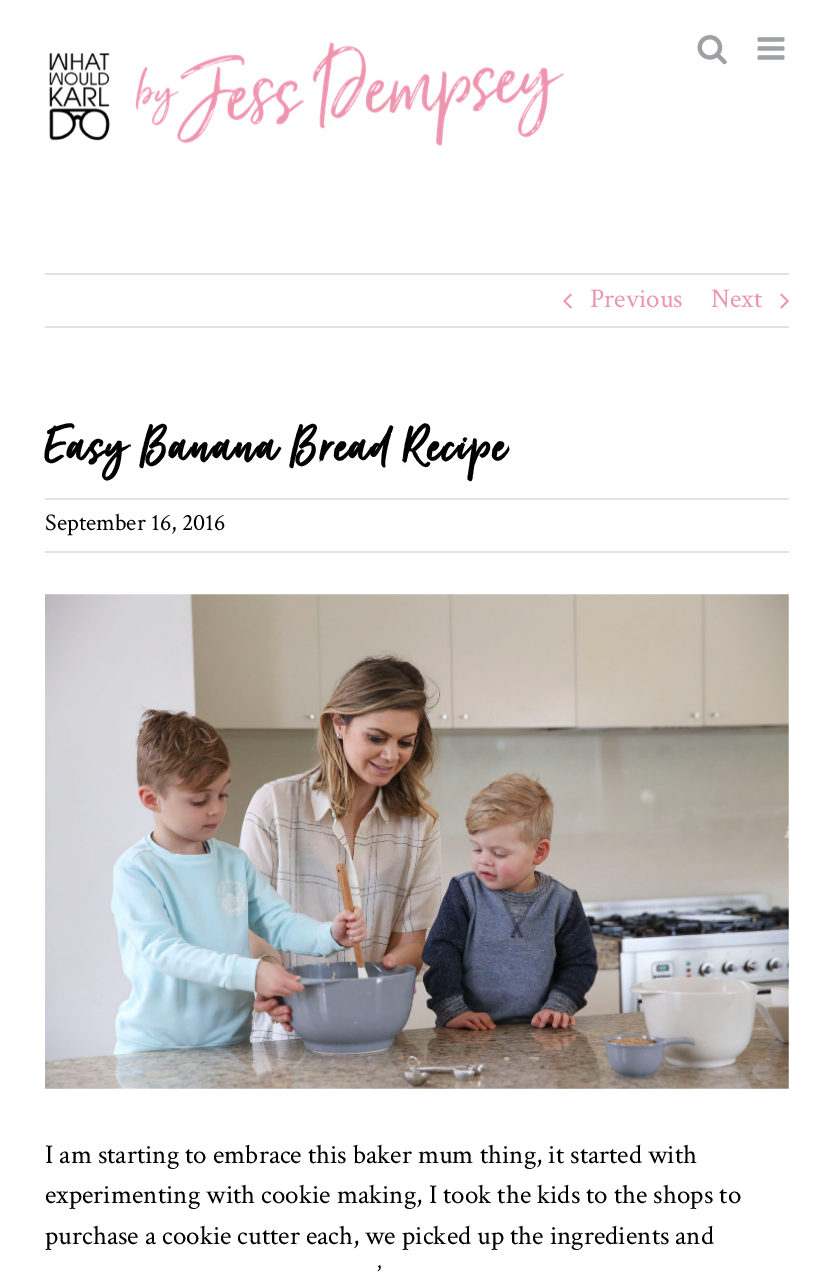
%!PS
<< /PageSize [833 1277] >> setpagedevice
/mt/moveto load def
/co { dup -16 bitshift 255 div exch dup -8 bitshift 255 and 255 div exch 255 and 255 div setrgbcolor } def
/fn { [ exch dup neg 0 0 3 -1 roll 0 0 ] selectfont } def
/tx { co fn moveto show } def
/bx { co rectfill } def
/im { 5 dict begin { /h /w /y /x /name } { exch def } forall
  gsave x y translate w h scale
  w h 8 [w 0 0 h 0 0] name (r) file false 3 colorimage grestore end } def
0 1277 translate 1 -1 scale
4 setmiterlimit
0 0 833 1277 16#FFFFFF bx
(media/1.raw) 49 42 515 104 im
(media/2.raw) 697 35 30 30 im
(media/3.raw) 757 37 28 23 im
45 273 744 2 16#E2E2E2 bx
45 326 744 2 16#E2E2E2 bx
(media/4.raw) 563 293 9 16 im
(media/5.raw) 780 293 9 16 im
45 498 744 2 16#E2E2E2 bx
45 551 744 2 16#E2E2E2 bx
(media/6.raw) 45 594 744 495 im
(Previous) 590 307 /CrimsonText-Regular 27 16#ED95AE tx
(Next) 711 307 /CrimsonText-Regular 27 16#ED95AE tx
/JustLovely-Bold 60 fn
16#000000 co
45 460 mt 2.25 0 (Easy Banana Bread Recipe) ashow
(September 16, 2016) 45 530 /CrimsonText-Regular 24 16#000000 tx
(I am starting to embrace this baker mum thing, it started with) 45 1163 /CrimsonText-Regular 27 16#000000 tx
(experimenting with cookie making, I took the kids to the shops to) 45 1203 /CrimsonText-Regular 27 16#000000 tx
(purchase a cookie cutter each, we picked up the ingredients and) 45 1244 /CrimsonText-Regular 27 16#000000 tx
(’) 377 1284 /CrimsonText-Regular 27 16#000000 tx
showpage
